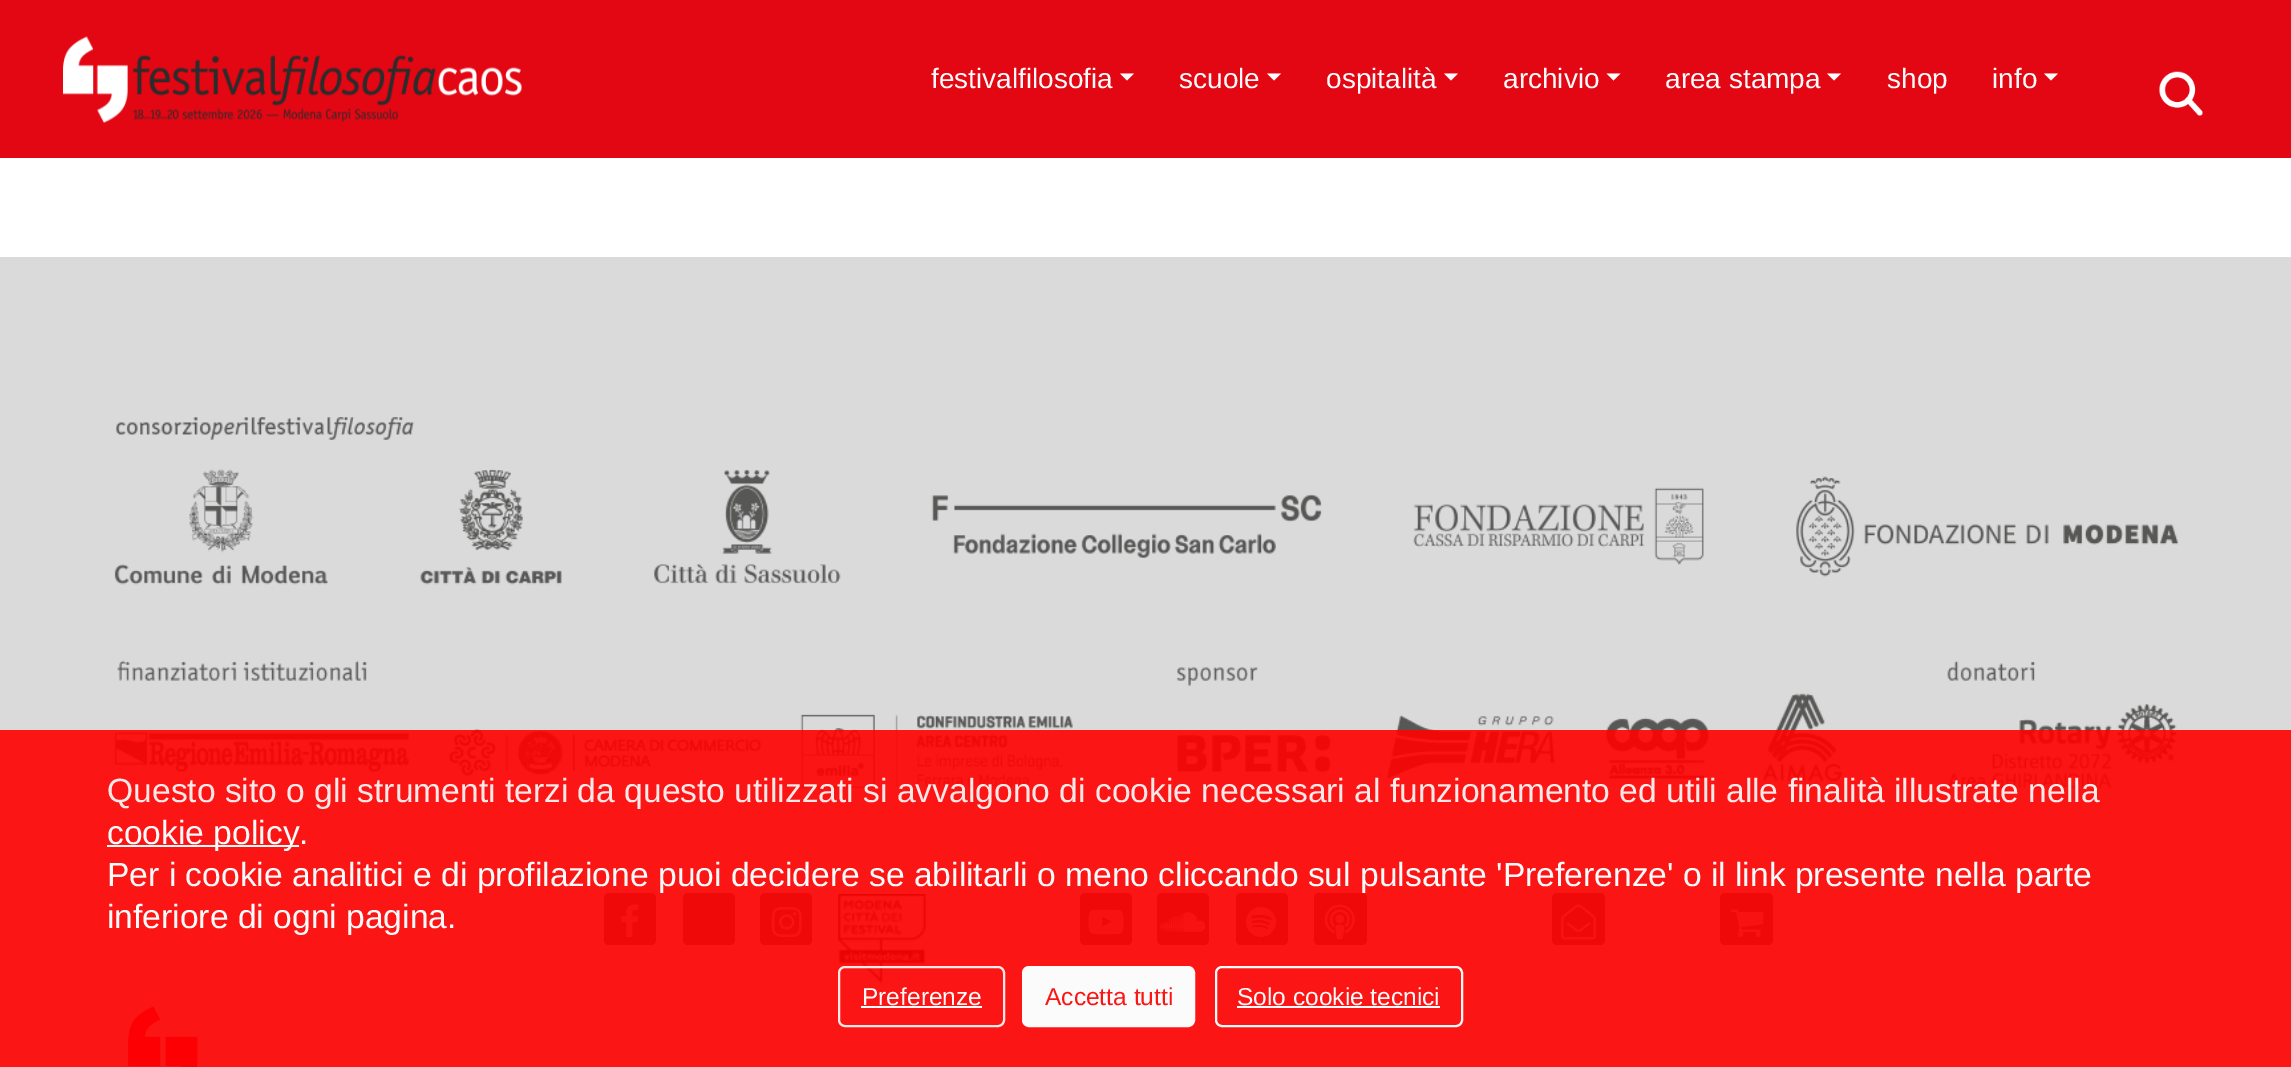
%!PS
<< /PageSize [2291 1067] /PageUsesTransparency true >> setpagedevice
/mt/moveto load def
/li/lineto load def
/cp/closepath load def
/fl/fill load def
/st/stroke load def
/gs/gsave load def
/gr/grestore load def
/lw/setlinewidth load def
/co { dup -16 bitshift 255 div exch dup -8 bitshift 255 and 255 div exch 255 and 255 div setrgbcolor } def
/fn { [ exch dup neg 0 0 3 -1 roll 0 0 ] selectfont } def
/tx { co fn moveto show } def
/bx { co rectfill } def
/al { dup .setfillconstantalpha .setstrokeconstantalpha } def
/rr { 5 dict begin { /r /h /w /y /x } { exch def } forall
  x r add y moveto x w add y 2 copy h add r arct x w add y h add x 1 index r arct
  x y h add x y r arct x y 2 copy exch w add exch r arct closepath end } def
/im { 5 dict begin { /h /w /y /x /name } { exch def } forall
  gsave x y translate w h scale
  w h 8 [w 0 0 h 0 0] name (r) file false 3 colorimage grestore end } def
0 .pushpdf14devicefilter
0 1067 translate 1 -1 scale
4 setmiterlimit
0 0 2291 1067 16#DADADA bx
0 0 2291 158 16#E30613 bx
(media/1.raw) 63 36 459 87 im
16#FFFFFF co
1120 73.5 mt 1134 73.5 li 1127 80.5 li cp fl
1267 73.5 mt 1281 73.5 li 1274 80.5 li cp fl
1444 73.5 mt 1458 73.5 li 1451 80.5 li cp fl
1606.5 73.5 mt 1620.5 73.5 li 1613.5 80.5 li cp fl
1827 73.5 mt 1841 73.5 li 1834 80.5 li cp fl
2044 73.5 mt 2058 73.5 li 2051 80.5 li cp fl
(media/2.raw) 2159 71 44 45 im
0 158 2291 99 16#FFFFFF bx
(media/3.raw) 114 417 2065 168 im
(media/4.raw) 114 660 2063 129 im
16#575757 co
604 893 52 52 5 rr fl
(media/5.raw) 621 904 18 33 im
683 893 52 52 5 rr fl
760 893 52 52 5 rr fl
(media/6.raw) 771 907 31 30 im
(media/7.raw) 838 894 88 90 im
1080 893 52 52 5 rr fl
(media/8.raw) 1088 909 36 26 im
1157 893 52 52 5 rr fl
(media/9.raw) 1160 912 46 20 im
1236 893 52 52 5 rr fl
(media/10.raw) 1246 907 30 30 im
1314 893 53 52 5 rr fl
(media/11.raw) 1324 904 31 36 im
1552 893 53 52 5 rr fl
(media/12.raw) 1561 904 35 36 im
1720 893 53 52 5 rr fl
(media/13.raw) 1730 909 34 28 im
(media/14.raw) 128 1006 70 61 im
0.9 al
0 730 2291 337 16#FF0000 bx
1 al
107 845 192 2 16#FBFBFB bx
0.9 al
16#FFFFFF co
2 lw
839 967 165 59 6 rr st
1 al
861 1006 121 2 16#FBFBFB bx
1023 967 171 59 6 rr gs fl gr
st
1216 967 246 59 6 rr st
1237 1006 203 2 16#FBFBFB bx
(festivalfilosofia) 931 88 /LiberationSans-Regular 28 16#FBFBFB tx
(scuole) 1179 88 /LiberationSans-Regular 28 16#FBFBFB tx
(ospitalità) 1326 88 /LiberationSans-Regular 28 16#FBFBFB tx
(archivio) 1503 88 /LiberationSans-Regular 28 16#FBFBFB tx
(area stampa) 1665 88 /LiberationSans-Regular 28 16#FBFBFB tx
(shop) 1887 88 /LiberationSans-Regular 28 16#FBFBFB tx
(info) 1992 88 /LiberationSans-Regular 28 16#FBFBFB tx
(Questo sito o gli strumenti terzi da questo utilizzati si avvalgono di cookie necessari al funzionamento ed utili alle finalità illustrate nella) 107 802 /LiberationSans-Regular 33.6 16#FFE8E8 tx
(cookie policy.) 107 844 /LiberationSans-Regular 33.6 16#FBFBFB tx
(Per i cookie analitici e di profilazione puoi decidere se abilitarli o meno cliccando sul pulsante 'Preferenze' o il link presente nella parte) 107 886 /LiberationSans-Regular 33.6 16#FBFBFB tx
(inferiore di ogni pagina.) 107 928 /LiberationSans-Regular 33.6 16#FBFBFB tx
(Preferenze) 862 1005 /LiberationSans-Regular 24.5 16#FBFBFB tx
(Accetta tutti) 1045 1005 /LiberationSans-Regular 24.5 16#FB1616 tx
(Solo cookie tecnici) 1237 1005 /LiberationSans-Regular 24.5 16#FBFBFB tx
.poppdf14devicefilter showpage
